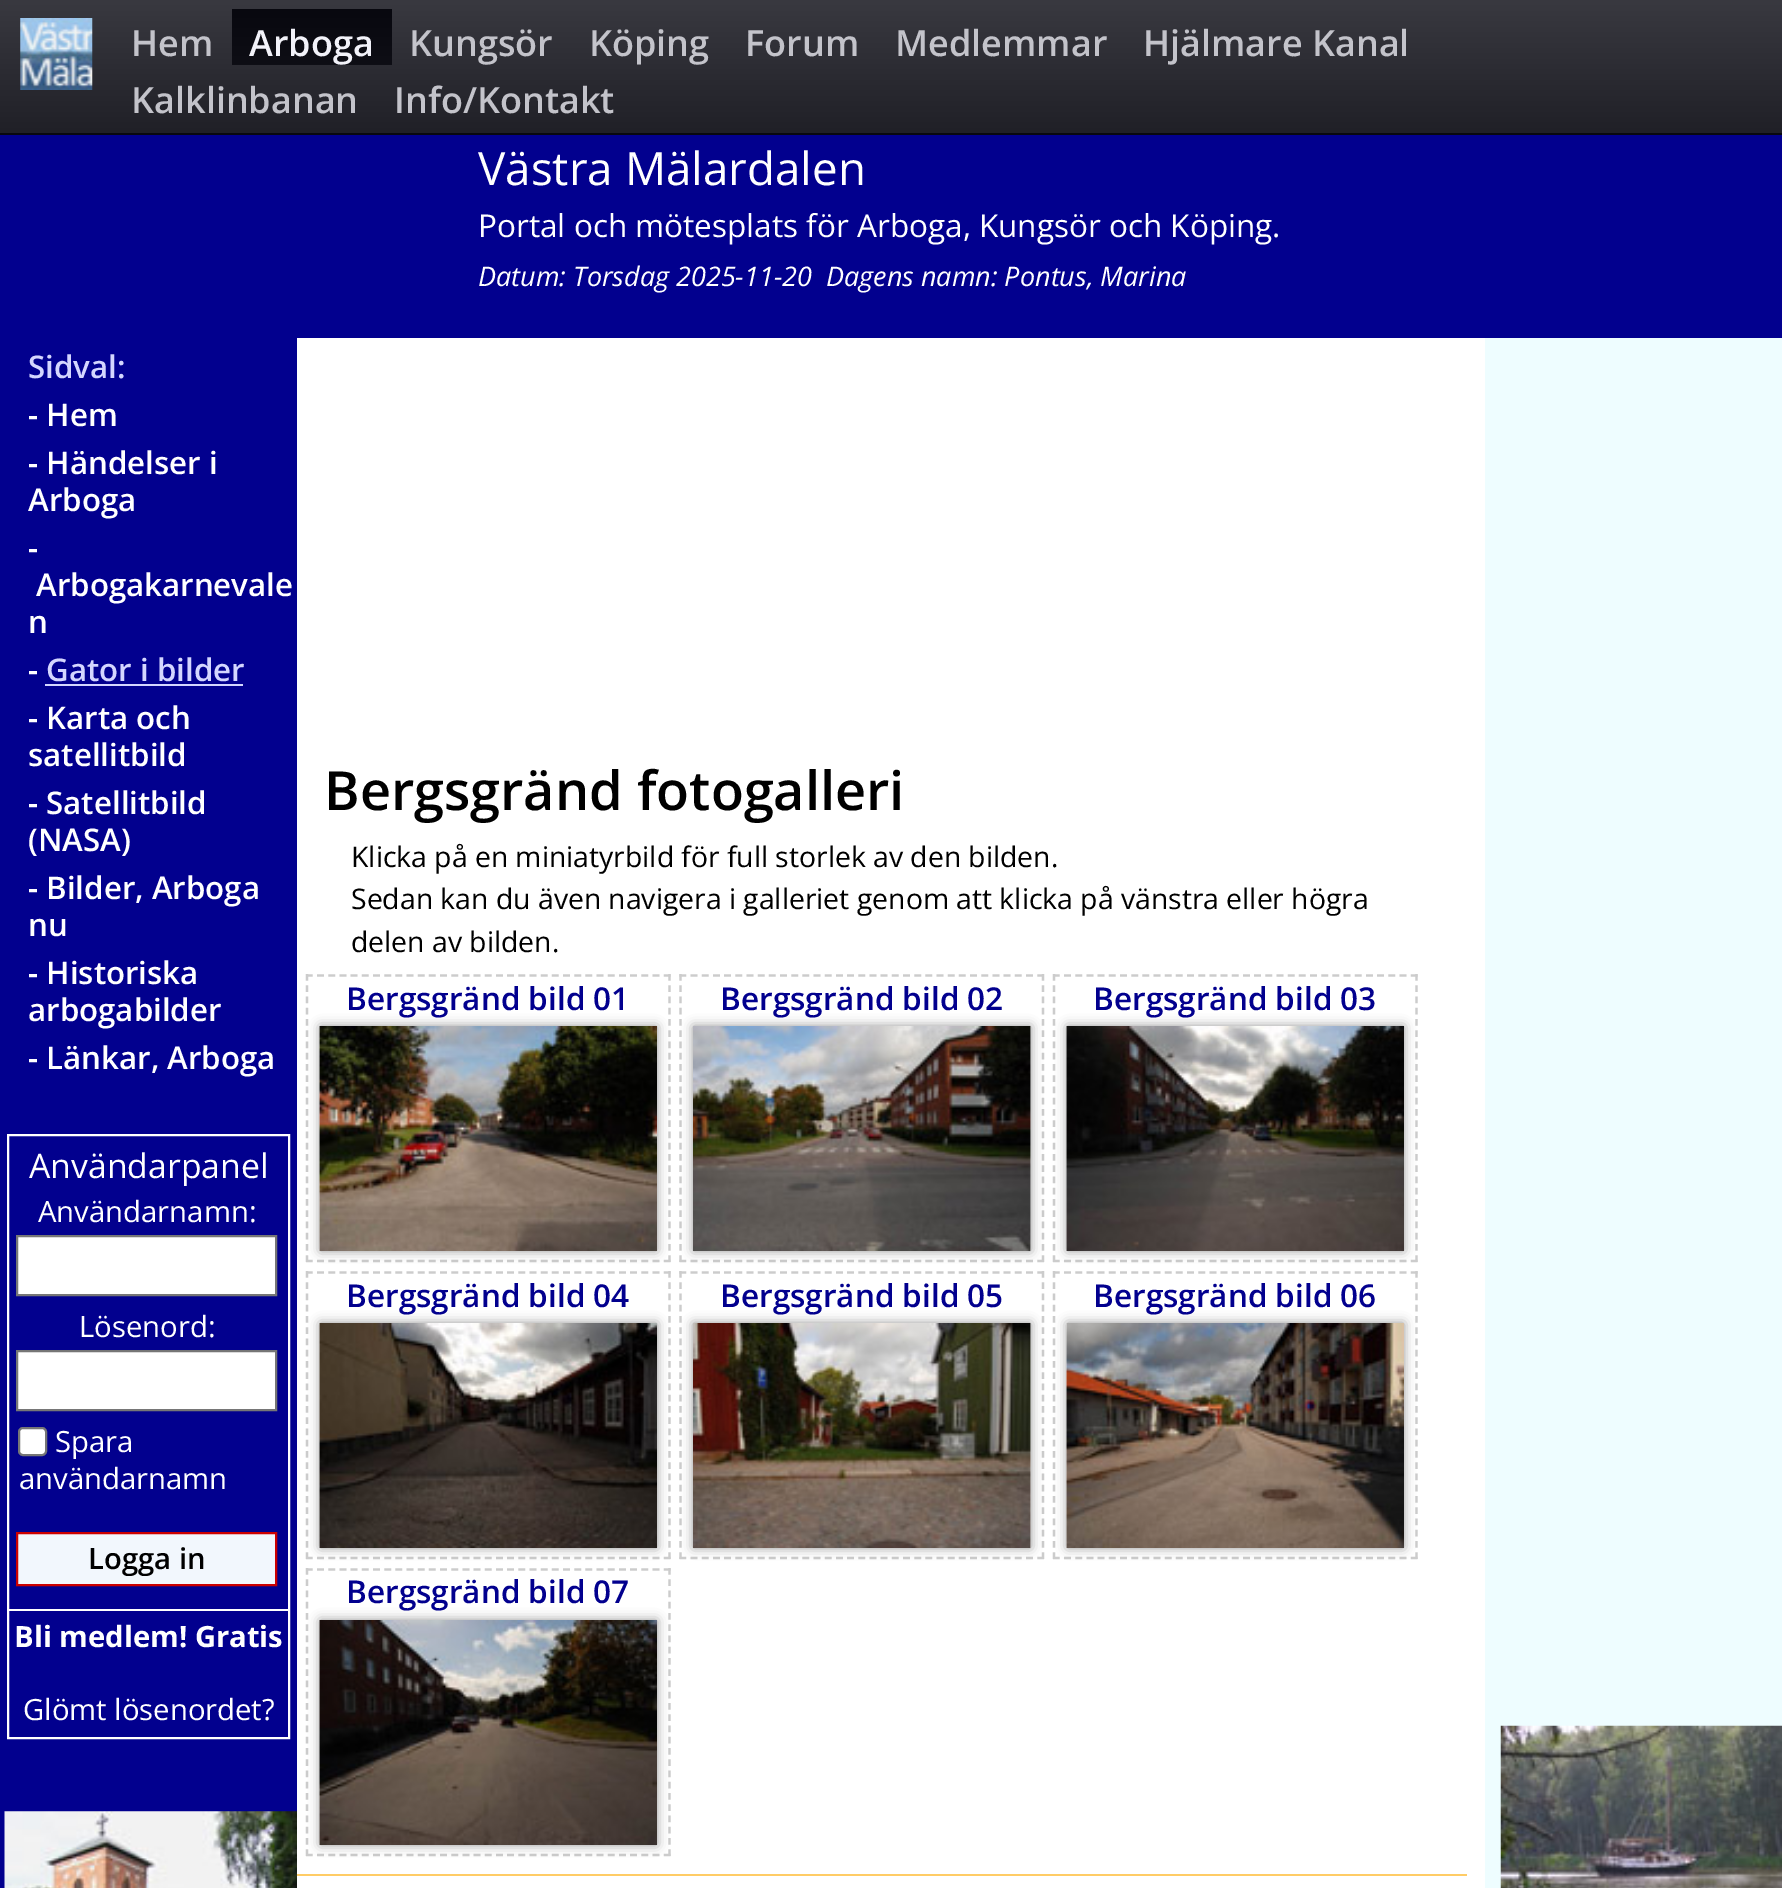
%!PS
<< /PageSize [1782 1888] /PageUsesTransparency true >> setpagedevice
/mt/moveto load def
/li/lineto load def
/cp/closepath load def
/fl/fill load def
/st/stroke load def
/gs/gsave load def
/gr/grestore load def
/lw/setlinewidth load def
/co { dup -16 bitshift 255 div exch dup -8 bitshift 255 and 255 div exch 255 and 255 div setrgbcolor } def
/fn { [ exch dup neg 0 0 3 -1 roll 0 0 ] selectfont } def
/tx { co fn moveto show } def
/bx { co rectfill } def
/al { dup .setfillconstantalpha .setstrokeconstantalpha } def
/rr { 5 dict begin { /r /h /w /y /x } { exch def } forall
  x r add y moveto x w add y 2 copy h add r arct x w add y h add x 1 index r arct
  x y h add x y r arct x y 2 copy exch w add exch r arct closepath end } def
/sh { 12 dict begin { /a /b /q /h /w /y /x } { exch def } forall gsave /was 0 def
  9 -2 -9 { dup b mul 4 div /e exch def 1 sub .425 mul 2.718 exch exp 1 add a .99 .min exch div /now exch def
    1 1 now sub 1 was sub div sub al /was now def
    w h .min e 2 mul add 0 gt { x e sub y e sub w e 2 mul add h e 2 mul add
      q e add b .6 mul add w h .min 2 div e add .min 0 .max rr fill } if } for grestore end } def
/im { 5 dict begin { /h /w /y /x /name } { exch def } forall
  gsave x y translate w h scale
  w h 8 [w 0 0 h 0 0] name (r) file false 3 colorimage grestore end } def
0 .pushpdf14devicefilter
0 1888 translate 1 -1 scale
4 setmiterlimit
0 0 1782 1888 16#02008E bx
gs 0 0 mt 1782 0 li 1782 133 li 0 133 li cp clip newpath
<< /ShadingType 2 /ColorSpace /DeviceRGB /Coords [891 0 891 133] /Extend [true true] /Function << /FunctionType 2 /Domain [0 1] /C0 [.224 .224 .251] /C1 [.125 .125 .153] /N 1 >> >> shfill gr
0 133 1782 2 16#08080F bx
(media/1.raw) 20 18 73 72 im
gs 232 9 mt 392 9 li 392 65 li 232 65 li cp clip newpath
<< /ShadingType 2 /ColorSpace /DeviceRGB /Coords [312 9 312 65] /Extend [true true] /Function << /FunctionType 2 /Domain [0 1] /C0 [.031 .031 .059] /C1 [.055 .055 .082] /N 1 >> >> shfill gr
45 684 198 2 16#D4D6FF bx
16#FFFFFF co
2 lw
8 1135 281 603 rectstroke
17 1236 mt 276 1236 li 276 1295 li 17 1295 li cp gs fl gr
16#767676 co
st
16#FFFFFF co
17 1351 mt 276 1351 li 276 1410 li 17 1410 li cp gs fl gr
16#767676 co
st
16#FFFFFF co
19 1428 27 27 4 rr gs fl gr
16#767676 co
st
16#F2F7FD co
17 1533 mt 276 1533 li 276 1585 li 17 1585 li cp gs fl gr
16#CC0000 co
st
9 1609 279 2 16#FFFFFF bx
(media/2.raw) 4 1811 293 77 im
297 338 1188 1550 16#FFFFFF bx
16#CCCCCC co
2.2 lw
[6.75 4.43] 0 setdash
306 975.5 mt 670.5 975.5 li st
[6.75 4.5] 0 setdash
669.5 974 mt 669.5 1262 li st
[6.75 4.43] 0 setdash
306 1261 mt 670.5 1261 li st
[6.75 4.5] 0 setdash
307 974 mt 307 1262 li st
16#999999 co
320 1026 337 225 0 5.5 1 sh
(media/3.raw) 319 1026 338 225 im
16#CCCCCC co
[6.75 4.43] 0 setdash
679.5 975.5 mt 1044 975.5 li st
[6.75 4.5] 0 setdash
1043 974 mt 1043 1262 li st
[6.75 4.43] 0 setdash
679.5 1261 mt 1044 1261 li st
[6.75 4.5] 0 setdash
680.5 974 mt 680.5 1262 li st
16#999999 co
693 1026 338 225 0 5.5 1 sh
(media/4.raw) 693 1026 338 225 im
16#CCCCCC co
[6.75 4.43] 0 setdash
1053 975.5 mt 1417.5 975.5 li st
[6.75 4.5] 0 setdash
1416.5 974 mt 1416.5 1262 li st
[6.75 4.43] 0 setdash
1053 1261 mt 1417.5 1261 li st
[6.75 4.5] 0 setdash
1054 974 mt 1054 1262 li st
16#999999 co
1067 1026 337 225 0 5.5 1 sh
(media/5.raw) 1066 1026 338 225 im
16#CCCCCC co
[6.75 4.43] 0 setdash
306 1272.5 mt 670.5 1272.5 li st
[6.75 4.5] 0 setdash
669.5 1271 mt 669.5 1559 li st
[6.75 4.43] 0 setdash
306 1558 mt 670.5 1558 li st
[6.75 4.5] 0 setdash
307 1271 mt 307 1559 li st
16#999999 co
320 1323 337 225 0 5.5 1 sh
(media/6.raw) 319 1323 338 225 im
16#CCCCCC co
[6.75 4.43] 0 setdash
679.5 1272.5 mt 1044 1272.5 li st
[6.75 4.5] 0 setdash
1043 1271 mt 1043 1559 li st
[6.75 4.43] 0 setdash
679.5 1558 mt 1044 1558 li st
[6.75 4.5] 0 setdash
680.5 1271 mt 680.5 1559 li st
16#999999 co
693 1323 338 225 0 5.5 1 sh
(media/7.raw) 693 1323 338 225 im
16#CCCCCC co
[6.75 4.43] 0 setdash
1053 1272.5 mt 1417.5 1272.5 li st
[6.75 4.5] 0 setdash
1416.5 1271 mt 1416.5 1559 li st
[6.75 4.43] 0 setdash
1053 1558 mt 1417.5 1558 li st
[6.75 4.5] 0 setdash
1054 1271 mt 1054 1559 li st
16#999999 co
1067 1323 337 225 0 5.5 1 sh
(media/8.raw) 1066 1323 338 225 im
16#CCCCCC co
[6.75 4.43] 0 setdash
306 1569.5 mt 670.5 1569.5 li st
[6.75 4.5] 0 setdash
669.5 1568 mt 669.5 1856 li st
[6.75 4.43] 0 setdash
306 1855 mt 670.5 1855 li st
[6.75 4.5] 0 setdash
307 1568 mt 307 1856 li st
16#999999 co
320 1620 337 225 0 5.5 1 sh
(media/9.raw) 319 1620 338 225 im
297 1874 1170 2 16#FFCC66 bx
1485 338 297 1550 16#EEFDFF bx
(media/10.raw) 1500 1725 282 163 im
(Hem) 131 56 /OpenSans-SemiBold 36 16#C3C3CA tx
(Arboga) 249 56 /OpenSans-SemiBold 36 16#F2F2F9 tx
(Kungsör) 409 56 /OpenSans-SemiBold 36 16#C3C3CA tx
(Köping) 589 56 /OpenSans-SemiBold 36 16#C3C3CA tx
(Forum) 745 56 /OpenSans-SemiBold 36 16#C3C3CA tx
(Medlemmar) 895 56 /OpenSans-SemiBold 36 16#C3C3CA tx
(Hjälmare Kanal) 1143 56 /OpenSans-SemiBold 36 16#C3C3CA tx
(Kalklinbanan) 131 113 /OpenSans-SemiBold 36 16#C3C3CA tx
(Info/Kontakt) 394 113 /OpenSans-SemiBold 36 16#C3C3CA tx
(Västra Mälardalen) 478 185 /OpenSans-Regular 45.75 16#FFFFFF tx
(Portal och mötesplats för Arboga, Kungsör och Köping.) 478 237 /OpenSans-Regular 31.5 16#FFFFFF tx
(Datum: Torsdag 2025-11-20  Dagens namn: Pontus, Marina) 478 286 /OpenSans-Italic 27 16#FFFFFF tx
(Sidval:) 28 378 /OpenSans-SemiBold 31.25 16#D4D6FF tx
(- Hem) 28 426 /OpenSans-SemiBold 31.25 16#FFFFFF tx
(- Händelser i) 28 474 /OpenSans-SemiBold 31.25 16#FFFFFF tx
(Arboga) 28 511 /OpenSans-SemiBold 31.25 16#FFFFFF tx
(-) 28 559 /OpenSans-SemiBold 31.25 16#FFFFFF tx
(Arbogakarnevale) 36 596 /OpenSans-SemiBold 31.25 16#FFFFFF tx
(n) 28 633 /OpenSans-SemiBold 31.25 16#FFFFFF tx
(-) 28 681 /OpenSans-SemiBold 31.25 16#FFFFFF tx
(Gator i bilder) 46 681 /OpenSans-SemiBold 31.25 16#D4D6FF tx
(- Karta och) 28 729 /OpenSans-SemiBold 31.25 16#FFFFFF tx
(satellitbild) 28 766 /OpenSans-SemiBold 31.25 16#FFFFFF tx
(- Satellitbild) 28 814 /OpenSans-SemiBold 31.25 16#FFFFFF tx
(\(NASA\)) 28 851 /OpenSans-SemiBold 31.25 16#FFFFFF tx
(- Bilder, Arboga) 28 899 /OpenSans-SemiBold 31.25 16#FFFFFF tx
(nu) 28 936 /OpenSans-SemiBold 31.25 16#FFFFFF tx
(- Historiska) 28 984 /OpenSans-SemiBold 31.25 16#FFFFFF tx
(arbogabilder) 28 1021 /OpenSans-SemiBold 31.25 16#FFFFFF tx
(- Länkar, Arboga) 28 1069 /OpenSans-SemiBold 31.25 16#FFFFFF tx
(Användarpanel) 29 1178 /OpenSans-Regular 33.75 16#FFFFFF tx
(Användarnamn:) 38 1222 /OpenSans-Regular 29.25 16#FFFFFF tx
(Lösenord:) 79 1337 /OpenSans-Regular 29.25 16#FFFFFF tx
(Spara) 55 1452 /OpenSans-Regular 29.25 16#FFFFFF tx
(användarnamn) 19 1489 /OpenSans-Regular 29.25 16#FFFFFF tx
(Logga in) 88 1569 /OpenSans-SemiBold 29.25 16#000000 tx
(Bli medlem! Gratis) 14 1647 /OpenSans-Bold 29.25 16#FFFFFF tx
(Glömt lösenordet?) 23 1720 /OpenSans-Regular 29.25 16#FFFFFF tx
(Bergsgränd fotogalleri) 324 810 /OpenSans-SemiBold 54 16#000000 tx
(Klicka på en miniatyrbild för full storlek av den bilden.) 351 867 /OpenSans-Regular 28.35 16#000000 tx
(Sedan kan du även navigera i galleriet genom att klicka på vänstra eller högra) 351 909 /OpenSans-Regular 28.35 16#000000 tx
(delen av bilden.) 351 952 /OpenSans-Regular 28.35 16#000000 tx
(Bergsgränd bild 01) 346 1010 /OpenSans-SemiBold 31.5 16#02008E tx
(Bergsgränd bild 02) 720 1010 /OpenSans-SemiBold 31.5 16#02008E tx
(Bergsgränd bild 03) 1093 1010 /OpenSans-SemiBold 31.5 16#02008E tx
(Bergsgränd bild 04) 346 1307 /OpenSans-SemiBold 31.5 16#02008E tx
(Bergsgränd bild 05) 720 1307 /OpenSans-SemiBold 31.5 16#02008E tx
(Bergsgränd bild 06) 1093 1307 /OpenSans-SemiBold 31.5 16#02008E tx
(Bergsgränd bild 07) 346 1603 /OpenSans-SemiBold 31.5 16#02008E tx
.poppdf14devicefilter showpage
